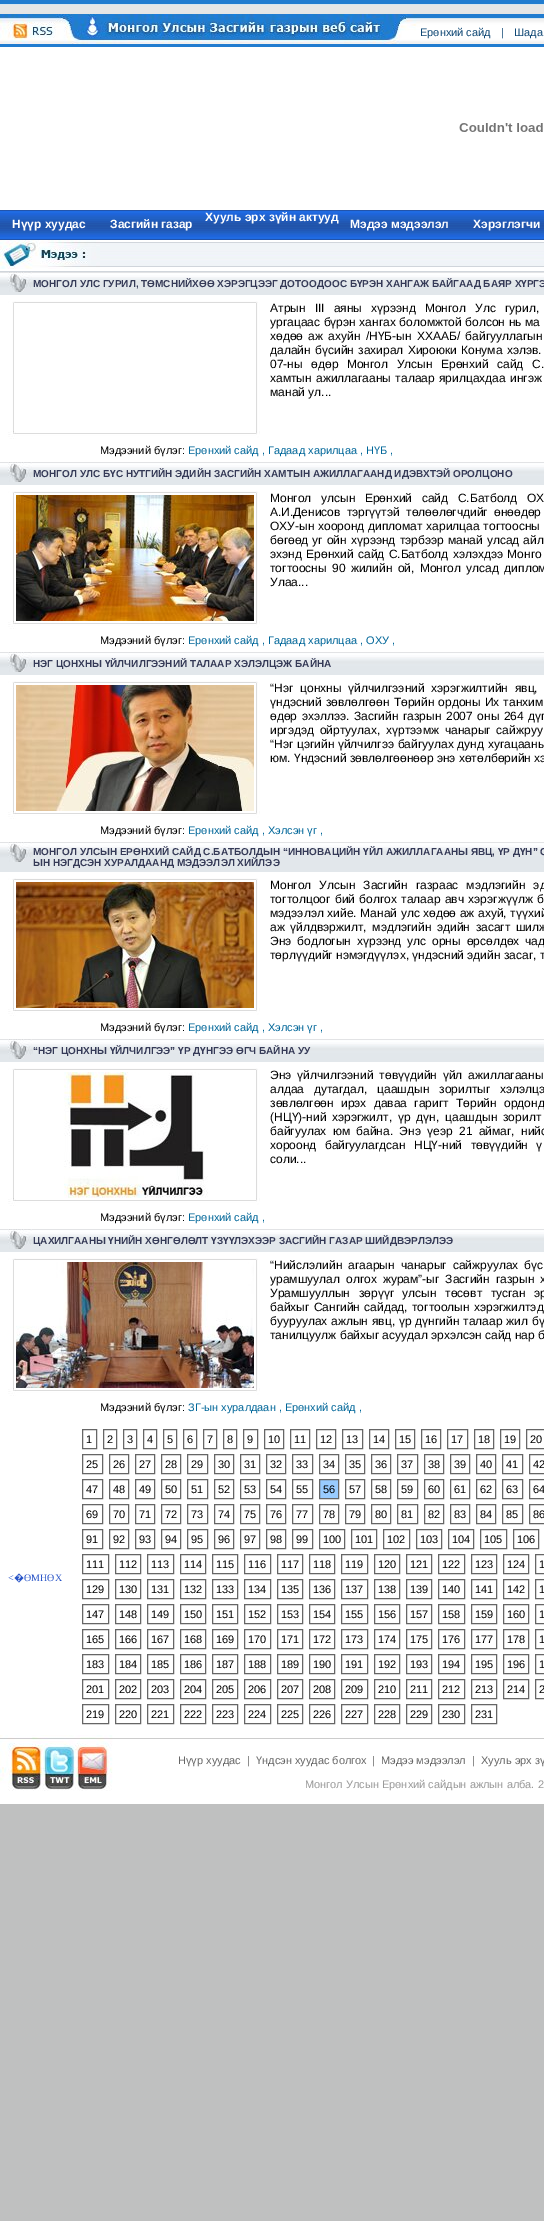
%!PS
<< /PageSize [544 2221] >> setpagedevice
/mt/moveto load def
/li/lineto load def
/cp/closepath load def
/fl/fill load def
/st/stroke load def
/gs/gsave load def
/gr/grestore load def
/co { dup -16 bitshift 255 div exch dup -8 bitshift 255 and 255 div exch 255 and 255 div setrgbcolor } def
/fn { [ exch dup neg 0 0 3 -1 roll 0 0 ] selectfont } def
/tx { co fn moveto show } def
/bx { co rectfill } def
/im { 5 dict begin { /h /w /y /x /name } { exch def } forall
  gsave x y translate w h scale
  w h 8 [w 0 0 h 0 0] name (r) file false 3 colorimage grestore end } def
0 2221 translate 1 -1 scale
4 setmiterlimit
0 0 544 2221 16#BFC0C0 bx
(media/1.raw) 0 0 544 14 im
0 47 544 1757 16#FFFFFF bx
(media/2.raw) 0 14 544 33 im
(media/3.raw) 0 14 420 30 im
(media/4.raw) 459 123 84 9 im
(media/5.raw) 0 210 544 30 im
(media/6.raw) 0 242 544 30 im
(media/7.raw) 0 240 100 29 im
(media/8.raw) 0 272 544 23 im
(media/9.raw) 0 272 33 20 im
(media/10.raw) 8 301 252 138 im
(media/8.raw) 0 462 544 23 im
(media/9.raw) 0 462 33 20 im
(media/10.raw) 8 491 252 138 im
(media/11.raw) 16 495 238 126 im
(media/8.raw) 0 652 544 23 im
(media/9.raw) 0 652 33 20 im
(media/10.raw) 8 681 252 138 im
(media/12.raw) 16 685 238 126 im
(media/13.raw) 0 842 544 30 im
(media/9.raw) 0 842 33 20 im
(media/10.raw) 8 878 252 138 im
(media/14.raw) 16 882 238 126 im
(media/8.raw) 0 1039 544 23 im
(media/9.raw) 0 1039 33 20 im
(media/10.raw) 8 1068 252 138 im
(media/15.raw) 64 1072 144 126 im
(media/8.raw) 0 1229 544 23 im
(media/9.raw) 0 1229 33 20 im
(media/10.raw) 8 1258 252 138 im
(media/16.raw) 16 1262 238 126 im
16#666666 co
82.5 1429.5 14 19 rectstroke
103.5 1429.5 13 19 rectstroke
123.5 1429.5 13 19 rectstroke
143.5 1429.5 13 19 rectstroke
163.5 1429.5 13 19 rectstroke
183.5 1429.5 13 19 rectstroke
203.5 1429.5 13 19 rectstroke
223.5 1429.5 13 19 rectstroke
243.5 1429.5 14 19 rectstroke
264.5 1429.5 19 19 rectstroke
290.5 1429.5 19 19 rectstroke
316.5 1429.5 19 19 rectstroke
342.5 1429.5 20 19 rectstroke
369.5 1429.5 19 19 rectstroke
395.5 1429.5 19 19 rectstroke
421.5 1429.5 19 19 rectstroke
447.5 1429.5 20 19 rectstroke
474.5 1429.5 19 19 rectstroke
500.5 1429.5 19 19 rectstroke
526.5 1429.5 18 19 rectstroke
82.5 1454.5 20 19 rectstroke
109.5 1454.5 19 19 rectstroke
135.5 1454.5 19 19 rectstroke
161.5 1454.5 19 19 rectstroke
187.5 1454.5 20 19 rectstroke
214.5 1454.5 19 19 rectstroke
240.5 1454.5 19 19 rectstroke
266.5 1454.5 19 19 rectstroke
292.5 1454.5 20 19 rectstroke
319.5 1454.5 19 19 rectstroke
345.5 1454.5 19 19 rectstroke
371.5 1454.5 19 19 rectstroke
397.5 1454.5 20 19 rectstroke
424.5 1454.5 19 19 rectstroke
450.5 1454.5 19 19 rectstroke
476.5 1454.5 19 19 rectstroke
502.5 1454.5 20 19 rectstroke
529.5 1454.5 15 19 rectstroke
82.5 1479.5 20 19 rectstroke
109.5 1479.5 19 19 rectstroke
135.5 1479.5 19 19 rectstroke
161.5 1479.5 19 19 rectstroke
187.5 1479.5 20 19 rectstroke
214.5 1479.5 19 19 rectstroke
240.5 1479.5 19 19 rectstroke
266.5 1479.5 19 19 rectstroke
292.5 1479.5 20 19 rectstroke
16#99CCFF co
319.5 1479.5 mt 338.5 1479.5 li 338.5 1498.5 li 319.5 1498.5 li cp gs fl gr
16#666666 co
st
345.5 1479.5 19 19 rectstroke
371.5 1479.5 19 19 rectstroke
397.5 1479.5 20 19 rectstroke
424.5 1479.5 19 19 rectstroke
450.5 1479.5 19 19 rectstroke
476.5 1479.5 19 19 rectstroke
502.5 1479.5 20 19 rectstroke
529.5 1479.5 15 19 rectstroke
82.5 1504.5 20 19 rectstroke
109.5 1504.5 19 19 rectstroke
135.5 1504.5 19 19 rectstroke
161.5 1504.5 19 19 rectstroke
187.5 1504.5 20 19 rectstroke
214.5 1504.5 19 19 rectstroke
240.5 1504.5 19 19 rectstroke
266.5 1504.5 19 19 rectstroke
292.5 1504.5 20 19 rectstroke
319.5 1504.5 19 19 rectstroke
345.5 1504.5 19 19 rectstroke
371.5 1504.5 19 19 rectstroke
397.5 1504.5 20 19 rectstroke
424.5 1504.5 19 19 rectstroke
450.5 1504.5 19 19 rectstroke
476.5 1504.5 19 19 rectstroke
502.5 1504.5 20 19 rectstroke
529.5 1504.5 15 19 rectstroke
82.5 1529.5 20 19 rectstroke
109.5 1529.5 19 19 rectstroke
135.5 1529.5 19 19 rectstroke
161.5 1529.5 19 19 rectstroke
187.5 1529.5 20 19 rectstroke
214.5 1529.5 19 19 rectstroke
240.5 1529.5 19 19 rectstroke
266.5 1529.5 19 19 rectstroke
292.5 1529.5 20 19 rectstroke
319.5 1529.5 25 19 rectstroke
351.5 1529.5 25 19 rectstroke
383.5 1529.5 26 19 rectstroke
416.5 1529.5 25 19 rectstroke
448.5 1529.5 25 19 rectstroke
480.5 1529.5 26 19 rectstroke
513.5 1529.5 25 19 rectstroke
82.5 1554.5 26 19 rectstroke
115.5 1554.5 25 19 rectstroke
147.5 1554.5 26 19 rectstroke
180.5 1554.5 25 19 rectstroke
212.5 1554.5 25 19 rectstroke
244.5 1554.5 26 19 rectstroke
277.5 1554.5 25 19 rectstroke
309.5 1554.5 25 19 rectstroke
341.5 1554.5 26 19 rectstroke
374.5 1554.5 25 19 rectstroke
406.5 1554.5 25 19 rectstroke
438.5 1554.5 26 19 rectstroke
471.5 1554.5 25 19 rectstroke
503.5 1554.5 25 19 rectstroke
535.5 1554.5 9 19 rectstroke
82.5 1579.5 26 19 rectstroke
115.5 1579.5 25 19 rectstroke
147.5 1579.5 26 19 rectstroke
180.5 1579.5 25 19 rectstroke
212.5 1579.5 25 19 rectstroke
244.5 1579.5 26 19 rectstroke
277.5 1579.5 25 19 rectstroke
309.5 1579.5 25 19 rectstroke
341.5 1579.5 26 19 rectstroke
374.5 1579.5 25 19 rectstroke
406.5 1579.5 25 19 rectstroke
438.5 1579.5 26 19 rectstroke
471.5 1579.5 25 19 rectstroke
503.5 1579.5 25 19 rectstroke
535.5 1579.5 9 19 rectstroke
82.5 1604.5 26 19 rectstroke
115.5 1604.5 25 19 rectstroke
147.5 1604.5 26 19 rectstroke
180.5 1604.5 25 19 rectstroke
212.5 1604.5 25 19 rectstroke
244.5 1604.5 26 19 rectstroke
277.5 1604.5 25 19 rectstroke
309.5 1604.5 25 19 rectstroke
341.5 1604.5 26 19 rectstroke
374.5 1604.5 25 19 rectstroke
406.5 1604.5 25 19 rectstroke
438.5 1604.5 26 19 rectstroke
471.5 1604.5 25 19 rectstroke
503.5 1604.5 25 19 rectstroke
535.5 1604.5 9 19 rectstroke
82.5 1629.5 26 19 rectstroke
115.5 1629.5 25 19 rectstroke
147.5 1629.5 26 19 rectstroke
180.5 1629.5 25 19 rectstroke
212.5 1629.5 25 19 rectstroke
244.5 1629.5 26 19 rectstroke
277.5 1629.5 25 19 rectstroke
309.5 1629.5 25 19 rectstroke
341.5 1629.5 26 19 rectstroke
374.5 1629.5 25 19 rectstroke
406.5 1629.5 25 19 rectstroke
438.5 1629.5 26 19 rectstroke
471.5 1629.5 25 19 rectstroke
503.5 1629.5 25 19 rectstroke
535.5 1629.5 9 19 rectstroke
82.5 1654.5 26 19 rectstroke
115.5 1654.5 25 19 rectstroke
147.5 1654.5 26 19 rectstroke
180.5 1654.5 25 19 rectstroke
212.5 1654.5 25 19 rectstroke
244.5 1654.5 26 19 rectstroke
277.5 1654.5 25 19 rectstroke
309.5 1654.5 25 19 rectstroke
341.5 1654.5 26 19 rectstroke
374.5 1654.5 25 19 rectstroke
406.5 1654.5 25 19 rectstroke
438.5 1654.5 26 19 rectstroke
471.5 1654.5 25 19 rectstroke
503.5 1654.5 25 19 rectstroke
535.5 1654.5 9 19 rectstroke
82.5 1679.5 26 19 rectstroke
115.5 1679.5 25 19 rectstroke
147.5 1679.5 26 19 rectstroke
180.5 1679.5 25 19 rectstroke
212.5 1679.5 25 19 rectstroke
244.5 1679.5 26 19 rectstroke
277.5 1679.5 25 19 rectstroke
309.5 1679.5 25 19 rectstroke
341.5 1679.5 26 19 rectstroke
374.5 1679.5 25 19 rectstroke
406.5 1679.5 25 19 rectstroke
438.5 1679.5 26 19 rectstroke
471.5 1679.5 25 19 rectstroke
503.5 1679.5 25 19 rectstroke
535.5 1679.5 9 19 rectstroke
82.5 1704.5 26 19 rectstroke
115.5 1704.5 25 19 rectstroke
147.5 1704.5 26 19 rectstroke
180.5 1704.5 25 19 rectstroke
212.5 1704.5 25 19 rectstroke
244.5 1704.5 26 19 rectstroke
277.5 1704.5 25 19 rectstroke
309.5 1704.5 25 19 rectstroke
341.5 1704.5 26 19 rectstroke
374.5 1704.5 25 19 rectstroke
406.5 1704.5 25 19 rectstroke
438.5 1704.5 26 19 rectstroke
471.5 1704.5 25 19 rectstroke
113 1738 431 1 16#CCCCCC bx
(media/17.raw) 0 1735 113 56 im
(Ерөнхий cайд) 420 36 /LiberationSans-Regular 11 16#0F4774 tx
(|) 501 36 /LiberationSans-Regular 11 16#0F4774 tx
(Шада) 514 36 /LiberationSans-Regular 11 16#0F4774 tx
(Нүүр xуудас) 12 228 /LiberationSans-Bold 12 16#FFFFFF tx
(Засгийн газар) 110 228 /LiberationSans-Bold 12 16#FFFFFF tx
(Хууль эрх зүйн актууд) 205 221 /LiberationSans-Bold 12 16#FFFFFF tx
(Мэдээ мэдээлэл) 350 228 /LiberationSans-Bold 12 16#FFFFFF tx
(Хэрэглэгчи) 473 228 /LiberationSans-Bold 12 16#FFFFFF tx
(МОНГОЛ УЛС ГУРИЛ, ТӨМСНИЙХӨӨ ХЭРЭГЦЭЭГ ДОТООДООС БҮРЭН ХАНГАЖ БАЙГААД БАЯР ХҮРГЭ) 33 287 /LiberationSans-Bold 10 16#353A57 tx
/LiberationSans-Regular 12 fn
16#000000 co
270 312 mt 5.75 0 32 (Атрын III аяны хүрээнд Монгол Улс гурил,) widthshow
270 326 mt .25 0 32 (ургацаас бүрэн хангах боломжтой болсон нь ма) widthshow
270 340 mt 2 0 32 (хөдөө аж ахуйн /НҮБ-ын ХХААБ/ байгууллагын) widthshow
270 354 mt 1 0 32 (далайн бүсийн захирал Хироюки Конума хэлэв.) widthshow
270 368 mt 5.25 0 32 (07-ны өдөр Монгол Улсын Ерөнхий сайд С.) widthshow
270 382 mt 1 0 32 (хамтын ажиллагааны талаар ярилцахдаа ингэж) widthshow
(манай ул...) 270 396 /LiberationSans-Regular 12 16#000000 tx
(Мэдээний бүлэг:) 100 454 /LiberationSans-Regular 11 16#000000 tx
(Ерөнхий сайд , Гадаад харилцаа , НҮБ ,) 188 454 /LiberationSans-Regular 11 16#006699 tx
(МОНГОЛ УЛС БҮС НУТГИЙН ЭДИЙН ЗАСГИЙН ХАМТЫН АЖИЛЛАГААНД ИДЭВХТЭЙ ОРОЛЦОНО) 33 477 /LiberationSans-Bold 10 16#353A57 tx
/LiberationSans-Regular 12 fn
16#000000 co
270 502 mt 6.25 0 32 (Монгол улсын Ерөнхий сайд С.Батболд ОХ) widthshow
270 516 mt 3 0 32 (А.И.Денисов тэргүүтэй төлөөлөгчдийг өнөөдөр) widthshow
270 530 mt .5 0 32 (ОХУ-ын хооронд дипломат харилцаа тогтоосны) widthshow
270 544 mt .75 0 32 (бөгөөд уг ойн хүрээнд тэрбээр манай улсад айл) widthshow
270 558 mt 1 0 32 (эхэнд Ерөнхий сайд С.Батболд хэлэхдээ Монго) widthshow
270 572 mt 2 0 32 (тогтоосны 90 жилийн ой, Монгол улсад диплом) widthshow
(Улаа...) 270 586 /LiberationSans-Regular 12 16#000000 tx
(Мэдээний бүлэг:) 100 644 /LiberationSans-Regular 11 16#000000 tx
(Ерөнхий сайд , Гадаад харилцаа , ОХУ ,) 188 644 /LiberationSans-Regular 11 16#006699 tx
(НЭГ ЦОНХНЫ ҮЙЛЧИЛГЭЭНИЙ ТАЛААР ХЭЛЭЛЦЭЖ БАЙНА) 33 667 /LiberationSans-Bold 10 16#353A57 tx
/LiberationSans-Regular 12 fn
16#000000 co
270 692 mt 3.5 0 32 (“Нэг цонхны үйлчилгээний хэрэгжилтийн явц,) widthshow
270 706 mt .75 0 32 (үндэсний зөвлөлгөөн Төрийн ордоны Их танхим) widthshow
270 720 mt 1.25 0 32 (өдөр эхэллээ. Засгийн газрын 2007 оны 264 дүг) widthshow
270 734 mt 2.5 0 32 (иргэдэд ойртуулах, хүртээмж чанарыг сайжруу) widthshow
270 748 mt .25 0 32 (“Нэг цэгийн үйлчилгээ байгуулах дунд хугацааны) widthshow
(юм. Үндэсний зөвлөлгөөнөөр энэ хөтөлбөрийн хэ) 270 762 /LiberationSans-Regular 12 16#000000 tx
(Мэдээний бүлэг:) 100 834 /LiberationSans-Regular 11 16#000000 tx
(Ерөнхий сайд , Хэлсэн үг ,) 188 834 /LiberationSans-Regular 11 16#006699 tx
(МОНГОЛ УЛСЫН ЕРӨНХИЙ САЙД С.БАТБОЛДЫН “ИННОВАЦИЙН ҮЙЛ АЖИЛЛАГААНЫ ЯВЦ, ҮР ДҮН” С) 33 855 /LiberationSans-Bold 10 16#353A57 tx
(ЫН НЭГДСЭН ХУРАЛДААНД МЭДЭЭЛЭЛ ХИЙЛЭЭ) 33 866 /LiberationSans-Bold 10 16#353A57 tx
/LiberationSans-Regular 12 fn
16#000000 co
270 889 mt 4.75 0 32 (Монгол Улсын Засгийн газраас мэдлэгийн эд) widthshow
270 903 mt 1 0 32 (тогтолцоог бий болгох талаар авч хэрэгжүүлж б) widthshow
270 917 mt .25 0 32 (мэдээлэл хийе. Манай улс хөдөө аж ахуй, түүхий) widthshow
270 931 mt 2.25 0 32 (аж үйлдвэржилт, мэдлэгийн эдийн засагт шилж) widthshow
270 945 mt 2.5 0 32 (Энэ бодлогын хүрээнд улс орны өрсөлдөх чад) widthshow
(төрлүүдийг нэмэгдүүлэх, үндэсний эдийн засаг, т) 270 959 /LiberationSans-Regular 12 16#000000 tx
(Мэдээний бүлэг:) 100 1031 /LiberationSans-Regular 11 16#000000 tx
(Ерөнхий сайд , Хэлсэн үг ,) 188 1031 /LiberationSans-Regular 11 16#006699 tx
(“НЭГ ЦОНХНЫ ҮЙЛЧИЛГЭЭ” ҮР ДҮНГЭЭ ӨГЧ БАЙНА УУ) 33 1054 /LiberationSans-Bold 10 16#353A57 tx
/LiberationSans-Regular 12 fn
16#000000 co
270 1079 mt 2.5 0 32 (Энэ үйлчилгээний төвүүдийн үйл ажиллагааны) widthshow
270 1093 mt 6.5 0 32 (алдаа дутагдал, цаашдын зорилтыг хэлэлцэ) widthshow
270 1107 mt 4 0 32 (зөвлөлгөөн ирэх даваа гаригт Төрийн ордонд) widthshow
270 1121 mt 2.5 0 32 (\(НЦҮ\)-ний хэрэгжилт, үр дүн, цаашдын зорилт) widthshow
270 1135 mt 3 0 32 (байгуулах юм байна. Энэ үеэр 21 аймаг, нийс) widthshow
270 1149 mt 5 0 32 (хороонд байгуулагдсан НЦҮ-ний төвүүдийн ү) widthshow
(соли...) 270 1163 /LiberationSans-Regular 12 16#000000 tx
(Мэдээний бүлэг:) 100 1221 /LiberationSans-Regular 11 16#000000 tx
(Ерөнхий сайд ,) 188 1221 /LiberationSans-Regular 11 16#006699 tx
(ЦАХИЛГААНЫ ҮНИЙН ХӨНГӨЛӨЛТ ҮЗҮҮЛЭХЭЭР ЗАСГИЙН ГАЗАР ШИЙДВЭРЛЭЛЭЭ) 33 1244 /LiberationSans-Bold 10 16#353A57 tx
/LiberationSans-Regular 12 fn
16#000000 co
270 1269 mt 2.75 0 32 (“Нийслэлийн агаарын чанарыг сайжруулах бүс) widthshow
270 1283 mt 2.75 0 32 (урамшуулал олгох журам”-ыг Засгийн газрын х) widthshow
270 1297 mt 5.25 0 32 (Урамшууллын зөрүүг улсын төсөвт тусган эр) widthshow
270 1311 mt 1 0 32 (байхыг Сангийн сайдад, тогтоолын хэрэгжилтэд) widthshow
270 1325 mt .5 0 32 (бууруулах ажлын явц, үр дүнгийн талаар жил бү) widthshow
(танилцуулж байхыг асуудал эрхэлсэн сайд нар б) 270 1339 /LiberationSans-Regular 12 16#000000 tx
(Мэдээний бүлэг:) 100 1411 /LiberationSans-Regular 11 16#000000 tx
(ЗГ-ын хуралдаан , Ерөнхий сайд ,) 188 1411 /LiberationSans-Regular 11 16#006699 tx
(<) 8 1581 /LiberationSerif-Regular 10 16#2652C7 tx
(�) 14 1581 /NotoSans-Regular 10 16#2652C7 tx
(ӨМНӨХ) 24 1581 /LiberationSerif-Regular 10 16#2652C7 tx
(1) 86 1443 /LiberationSans-Regular 11 16#000000 tx
(2) 107 1443 /LiberationSans-Regular 11 16#000000 tx
(3) 127 1443 /LiberationSans-Regular 11 16#000000 tx
(4) 147 1443 /LiberationSans-Regular 11 16#000000 tx
(5) 167 1443 /LiberationSans-Regular 11 16#000000 tx
(6) 187 1443 /LiberationSans-Regular 11 16#000000 tx
(7) 207 1443 /LiberationSans-Regular 11 16#000000 tx
(8) 227 1443 /LiberationSans-Regular 11 16#000000 tx
(9) 247 1443 /LiberationSans-Regular 11 16#000000 tx
(10) 268 1443 /LiberationSans-Regular 11 16#000000 tx
(11) 294 1443 /LiberationSans-Regular 11 16#000000 tx
(12) 320 1443 /LiberationSans-Regular 11 16#000000 tx
(13) 346 1443 /LiberationSans-Regular 11 16#000000 tx
(14) 373 1443 /LiberationSans-Regular 11 16#000000 tx
(15) 399 1443 /LiberationSans-Regular 11 16#000000 tx
(16) 425 1443 /LiberationSans-Regular 11 16#000000 tx
(17) 451 1443 /LiberationSans-Regular 11 16#000000 tx
(18) 478 1443 /LiberationSans-Regular 11 16#000000 tx
(19) 504 1443 /LiberationSans-Regular 11 16#000000 tx
(20) 530 1443 /LiberationSans-Regular 11 16#000000 tx
(25) 86 1468 /LiberationSans-Regular 11 16#000000 tx
(26) 113 1468 /LiberationSans-Regular 11 16#000000 tx
(27) 139 1468 /LiberationSans-Regular 11 16#000000 tx
(28) 165 1468 /LiberationSans-Regular 11 16#000000 tx
(29) 191 1468 /LiberationSans-Regular 11 16#000000 tx
(30) 218 1468 /LiberationSans-Regular 11 16#000000 tx
(31) 244 1468 /LiberationSans-Regular 11 16#000000 tx
(32) 270 1468 /LiberationSans-Regular 11 16#000000 tx
(33) 296 1468 /LiberationSans-Regular 11 16#000000 tx
(34) 323 1468 /LiberationSans-Regular 11 16#000000 tx
(35) 349 1468 /LiberationSans-Regular 11 16#000000 tx
(36) 375 1468 /LiberationSans-Regular 11 16#000000 tx
(37) 401 1468 /LiberationSans-Regular 11 16#000000 tx
(38) 428 1468 /LiberationSans-Regular 11 16#000000 tx
(39) 454 1468 /LiberationSans-Regular 11 16#000000 tx
(40) 480 1468 /LiberationSans-Regular 11 16#000000 tx
(41) 506 1468 /LiberationSans-Regular 11 16#000000 tx
(42) 533 1468 /LiberationSans-Regular 11 16#000000 tx
(47) 86 1493 /LiberationSans-Regular 11 16#000000 tx
(48) 113 1493 /LiberationSans-Regular 11 16#000000 tx
(49) 139 1493 /LiberationSans-Regular 11 16#000000 tx
(50) 165 1493 /LiberationSans-Regular 11 16#000000 tx
(51) 191 1493 /LiberationSans-Regular 11 16#000000 tx
(52) 218 1493 /LiberationSans-Regular 11 16#000000 tx
(53) 244 1493 /LiberationSans-Regular 11 16#000000 tx
(54) 270 1493 /LiberationSans-Regular 11 16#000000 tx
(55) 296 1493 /LiberationSans-Regular 11 16#000000 tx
(56) 323 1493 /LiberationSans-Regular 11 16#000000 tx
(57) 349 1493 /LiberationSans-Regular 11 16#000000 tx
(58) 375 1493 /LiberationSans-Regular 11 16#000000 tx
(59) 401 1493 /LiberationSans-Regular 11 16#000000 tx
(60) 428 1493 /LiberationSans-Regular 11 16#000000 tx
(61) 454 1493 /LiberationSans-Regular 11 16#000000 tx
(62) 480 1493 /LiberationSans-Regular 11 16#000000 tx
(63) 506 1493 /LiberationSans-Regular 11 16#000000 tx
(64) 533 1493 /LiberationSans-Regular 11 16#000000 tx
(69) 86 1518 /LiberationSans-Regular 11 16#000000 tx
(70) 113 1518 /LiberationSans-Regular 11 16#000000 tx
(71) 139 1518 /LiberationSans-Regular 11 16#000000 tx
(72) 165 1518 /LiberationSans-Regular 11 16#000000 tx
(73) 191 1518 /LiberationSans-Regular 11 16#000000 tx
(74) 218 1518 /LiberationSans-Regular 11 16#000000 tx
(75) 244 1518 /LiberationSans-Regular 11 16#000000 tx
(76) 270 1518 /LiberationSans-Regular 11 16#000000 tx
(77) 296 1518 /LiberationSans-Regular 11 16#000000 tx
(78) 323 1518 /LiberationSans-Regular 11 16#000000 tx
(79) 349 1518 /LiberationSans-Regular 11 16#000000 tx
(80) 375 1518 /LiberationSans-Regular 11 16#000000 tx
(81) 401 1518 /LiberationSans-Regular 11 16#000000 tx
(82) 428 1518 /LiberationSans-Regular 11 16#000000 tx
(83) 454 1518 /LiberationSans-Regular 11 16#000000 tx
(84) 480 1518 /LiberationSans-Regular 11 16#000000 tx
(85) 506 1518 /LiberationSans-Regular 11 16#000000 tx
(86) 533 1518 /LiberationSans-Regular 11 16#000000 tx
(91) 86 1543 /LiberationSans-Regular 11 16#000000 tx
(92) 113 1543 /LiberationSans-Regular 11 16#000000 tx
(93) 139 1543 /LiberationSans-Regular 11 16#000000 tx
(94) 165 1543 /LiberationSans-Regular 11 16#000000 tx
(95) 191 1543 /LiberationSans-Regular 11 16#000000 tx
(96) 218 1543 /LiberationSans-Regular 11 16#000000 tx
(97) 244 1543 /LiberationSans-Regular 11 16#000000 tx
(98) 270 1543 /LiberationSans-Regular 11 16#000000 tx
(99) 296 1543 /LiberationSans-Regular 11 16#000000 tx
(100) 323 1543 /LiberationSans-Regular 11 16#000000 tx
(101) 355 1543 /LiberationSans-Regular 11 16#000000 tx
(102) 387 1543 /LiberationSans-Regular 11 16#000000 tx
(103) 420 1543 /LiberationSans-Regular 11 16#000000 tx
(104) 452 1543 /LiberationSans-Regular 11 16#000000 tx
(105) 484 1543 /LiberationSans-Regular 11 16#000000 tx
(106) 517 1543 /LiberationSans-Regular 11 16#000000 tx
(111) 86 1568 /LiberationSans-Regular 11 16#000000 tx
(112) 119 1568 /LiberationSans-Regular 11 16#000000 tx
(113) 151 1568 /LiberationSans-Regular 11 16#000000 tx
(114) 184 1568 /LiberationSans-Regular 11 16#000000 tx
(115) 216 1568 /LiberationSans-Regular 11 16#000000 tx
(116) 248 1568 /LiberationSans-Regular 11 16#000000 tx
(117) 281 1568 /LiberationSans-Regular 11 16#000000 tx
(118) 313 1568 /LiberationSans-Regular 11 16#000000 tx
(119) 345 1568 /LiberationSans-Regular 11 16#000000 tx
(120) 378 1568 /LiberationSans-Regular 11 16#000000 tx
(121) 410 1568 /LiberationSans-Regular 11 16#000000 tx
(122) 442 1568 /LiberationSans-Regular 11 16#000000 tx
(123) 475 1568 /LiberationSans-Regular 11 16#000000 tx
(124) 507 1568 /LiberationSans-Regular 11 16#000000 tx
(1) 539 1568 /LiberationSans-Regular 11 16#000000 tx
(129) 86 1593 /LiberationSans-Regular 11 16#000000 tx
(130) 119 1593 /LiberationSans-Regular 11 16#000000 tx
(131) 151 1593 /LiberationSans-Regular 11 16#000000 tx
(132) 184 1593 /LiberationSans-Regular 11 16#000000 tx
(133) 216 1593 /LiberationSans-Regular 11 16#000000 tx
(134) 248 1593 /LiberationSans-Regular 11 16#000000 tx
(135) 281 1593 /LiberationSans-Regular 11 16#000000 tx
(136) 313 1593 /LiberationSans-Regular 11 16#000000 tx
(137) 345 1593 /LiberationSans-Regular 11 16#000000 tx
(138) 378 1593 /LiberationSans-Regular 11 16#000000 tx
(139) 410 1593 /LiberationSans-Regular 11 16#000000 tx
(140) 442 1593 /LiberationSans-Regular 11 16#000000 tx
(141) 475 1593 /LiberationSans-Regular 11 16#000000 tx
(142) 507 1593 /LiberationSans-Regular 11 16#000000 tx
(1) 539 1593 /LiberationSans-Regular 11 16#000000 tx
(147) 86 1618 /LiberationSans-Regular 11 16#000000 tx
(148) 119 1618 /LiberationSans-Regular 11 16#000000 tx
(149) 151 1618 /LiberationSans-Regular 11 16#000000 tx
(150) 184 1618 /LiberationSans-Regular 11 16#000000 tx
(151) 216 1618 /LiberationSans-Regular 11 16#000000 tx
(152) 248 1618 /LiberationSans-Regular 11 16#000000 tx
(153) 281 1618 /LiberationSans-Regular 11 16#000000 tx
(154) 313 1618 /LiberationSans-Regular 11 16#000000 tx
(155) 345 1618 /LiberationSans-Regular 11 16#000000 tx
(156) 378 1618 /LiberationSans-Regular 11 16#000000 tx
(157) 410 1618 /LiberationSans-Regular 11 16#000000 tx
(158) 442 1618 /LiberationSans-Regular 11 16#000000 tx
(159) 475 1618 /LiberationSans-Regular 11 16#000000 tx
(160) 507 1618 /LiberationSans-Regular 11 16#000000 tx
(1) 539 1618 /LiberationSans-Regular 11 16#000000 tx
(165) 86 1643 /LiberationSans-Regular 11 16#000000 tx
(166) 119 1643 /LiberationSans-Regular 11 16#000000 tx
(167) 151 1643 /LiberationSans-Regular 11 16#000000 tx
(168) 184 1643 /LiberationSans-Regular 11 16#000000 tx
(169) 216 1643 /LiberationSans-Regular 11 16#000000 tx
(170) 248 1643 /LiberationSans-Regular 11 16#000000 tx
(171) 281 1643 /LiberationSans-Regular 11 16#000000 tx
(172) 313 1643 /LiberationSans-Regular 11 16#000000 tx
(173) 345 1643 /LiberationSans-Regular 11 16#000000 tx
(174) 378 1643 /LiberationSans-Regular 11 16#000000 tx
(175) 410 1643 /LiberationSans-Regular 11 16#000000 tx
(176) 442 1643 /LiberationSans-Regular 11 16#000000 tx
(177) 475 1643 /LiberationSans-Regular 11 16#000000 tx
(178) 507 1643 /LiberationSans-Regular 11 16#000000 tx
(1) 539 1643 /LiberationSans-Regular 11 16#000000 tx
(183) 86 1668 /LiberationSans-Regular 11 16#000000 tx
(184) 119 1668 /LiberationSans-Regular 11 16#000000 tx
(185) 151 1668 /LiberationSans-Regular 11 16#000000 tx
(186) 184 1668 /LiberationSans-Regular 11 16#000000 tx
(187) 216 1668 /LiberationSans-Regular 11 16#000000 tx
(188) 248 1668 /LiberationSans-Regular 11 16#000000 tx
(189) 281 1668 /LiberationSans-Regular 11 16#000000 tx
(190) 313 1668 /LiberationSans-Regular 11 16#000000 tx
(191) 345 1668 /LiberationSans-Regular 11 16#000000 tx
(192) 378 1668 /LiberationSans-Regular 11 16#000000 tx
(193) 410 1668 /LiberationSans-Regular 11 16#000000 tx
(194) 442 1668 /LiberationSans-Regular 11 16#000000 tx
(195) 475 1668 /LiberationSans-Regular 11 16#000000 tx
(196) 507 1668 /LiberationSans-Regular 11 16#000000 tx
(1) 539 1668 /LiberationSans-Regular 11 16#000000 tx
(201) 86 1693 /LiberationSans-Regular 11 16#000000 tx
(202) 119 1693 /LiberationSans-Regular 11 16#000000 tx
(203) 151 1693 /LiberationSans-Regular 11 16#000000 tx
(204) 184 1693 /LiberationSans-Regular 11 16#000000 tx
(205) 216 1693 /LiberationSans-Regular 11 16#000000 tx
(206) 248 1693 /LiberationSans-Regular 11 16#000000 tx
(207) 281 1693 /LiberationSans-Regular 11 16#000000 tx
(208) 313 1693 /LiberationSans-Regular 11 16#000000 tx
(209) 345 1693 /LiberationSans-Regular 11 16#000000 tx
(210) 378 1693 /LiberationSans-Regular 11 16#000000 tx
(211) 410 1693 /LiberationSans-Regular 11 16#000000 tx
(212) 442 1693 /LiberationSans-Regular 11 16#000000 tx
(213) 475 1693 /LiberationSans-Regular 11 16#000000 tx
(214) 507 1693 /LiberationSans-Regular 11 16#000000 tx
(2) 539 1693 /LiberationSans-Regular 11 16#000000 tx
(219) 86 1718 /LiberationSans-Regular 11 16#000000 tx
(220) 119 1718 /LiberationSans-Regular 11 16#000000 tx
(221) 151 1718 /LiberationSans-Regular 11 16#000000 tx
(222) 184 1718 /LiberationSans-Regular 11 16#000000 tx
(223) 216 1718 /LiberationSans-Regular 11 16#000000 tx
(224) 248 1718 /LiberationSans-Regular 11 16#000000 tx
(225) 281 1718 /LiberationSans-Regular 11 16#000000 tx
(226) 313 1718 /LiberationSans-Regular 11 16#000000 tx
(227) 345 1718 /LiberationSans-Regular 11 16#000000 tx
(228) 378 1718 /LiberationSans-Regular 11 16#000000 tx
(229) 410 1718 /LiberationSans-Regular 11 16#000000 tx
(230) 442 1718 /LiberationSans-Regular 11 16#000000 tx
(231) 475 1718 /LiberationSans-Regular 11 16#000000 tx
(Нүүр хуудас) 178 1764 /LiberationSans-Regular 11 16#666666 tx
(|) 247 1764 /LiberationSans-Regular 11 16#666666 tx
(Үндсэн хуудас болгох) 256 1764 /LiberationSans-Regular 11 16#666666 tx
(|) 372 1764 /LiberationSans-Regular 11 16#666666 tx
(Мэдээ мэдээлэл) 381 1764 /LiberationSans-Regular 11 16#666666 tx
(|) 472 1764 /LiberationSans-Regular 11 16#666666 tx
(Хууль эрх зү) 481 1764 /LiberationSans-Regular 11 16#666666 tx
(Монгол Улсын Ерөнхий сайдын ажлын алба. 2) 305 1788 /LiberationSans-Regular 11 16#999999 tx
showpage
